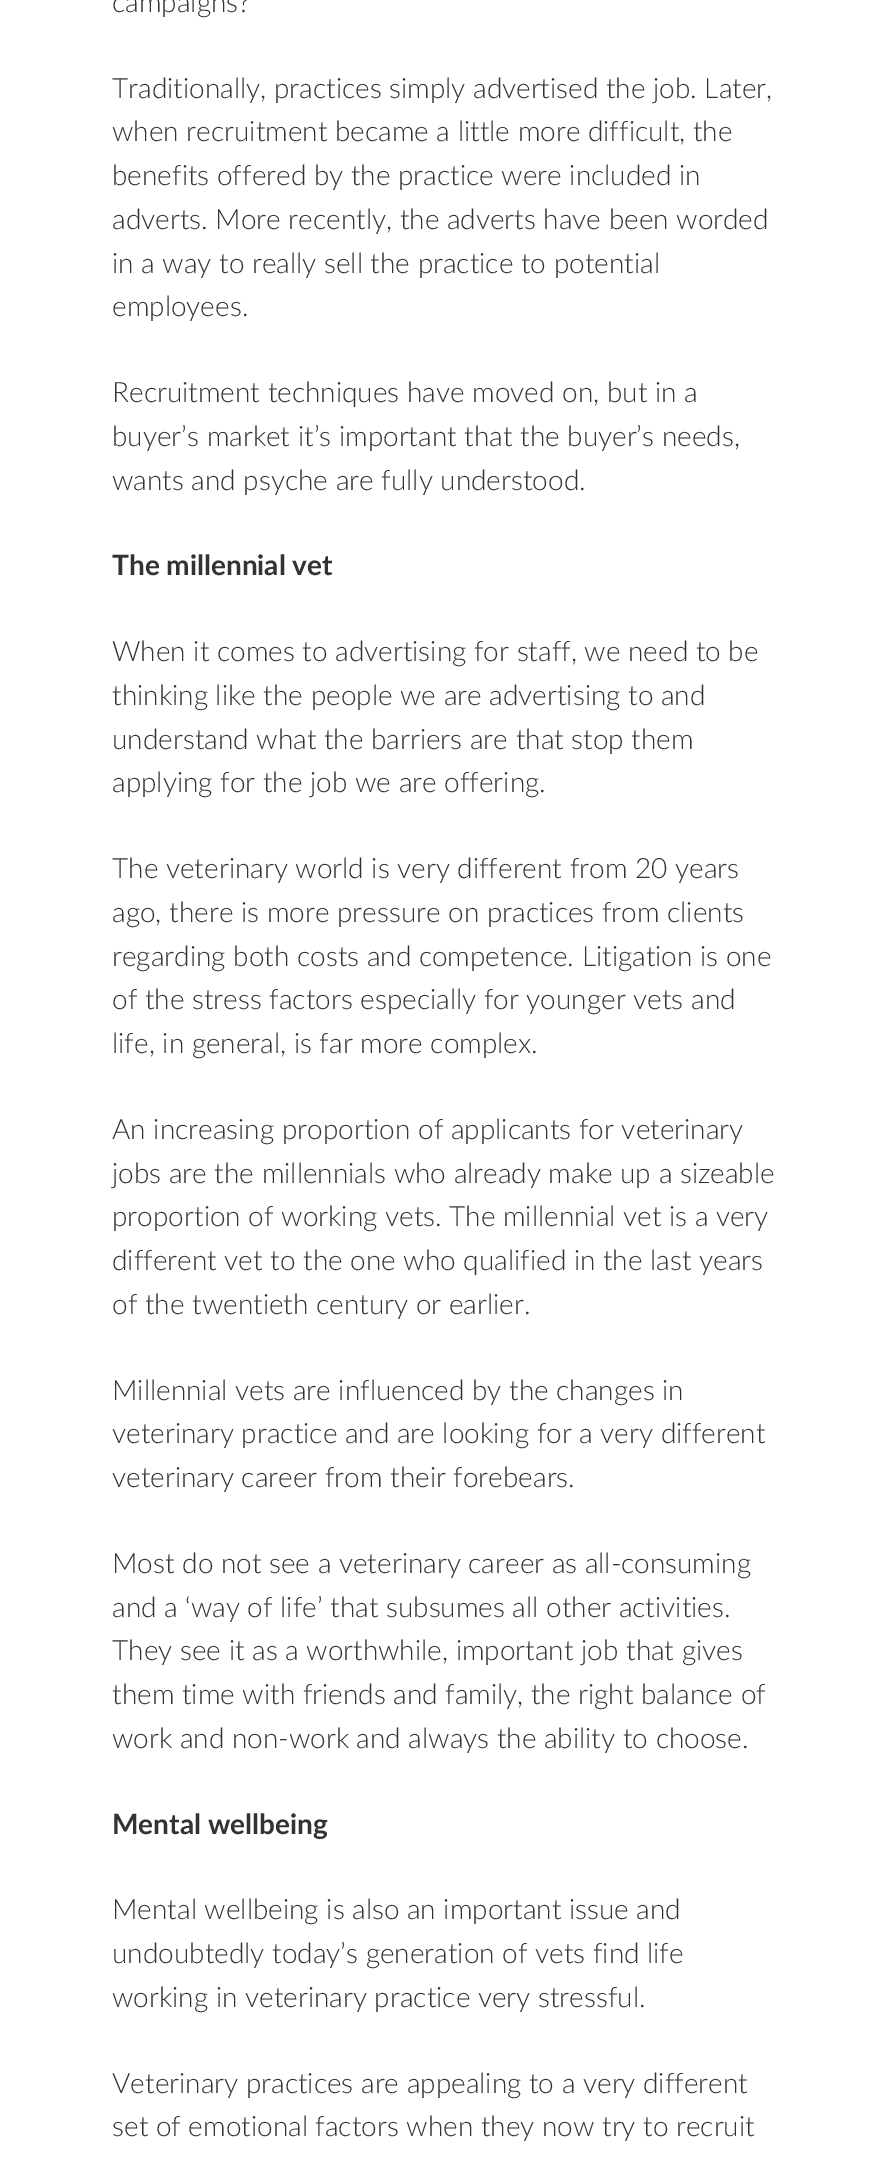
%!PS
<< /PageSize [891 2174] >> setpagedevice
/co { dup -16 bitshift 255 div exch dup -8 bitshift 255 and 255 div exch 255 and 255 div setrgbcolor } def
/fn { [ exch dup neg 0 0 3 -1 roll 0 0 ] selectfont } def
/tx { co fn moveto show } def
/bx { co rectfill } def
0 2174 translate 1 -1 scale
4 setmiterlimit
0 0 891 2174 16#FFFFFF bx
(campaigns?) 112 12 /Lato-Light 28 16#333333 tx
(Traditionally, practices simply advertised the job. Later,) 112 98 /Lato-Light 28 16#333333 tx
(when recruitment became a little more difficult, the) 112 141 /Lato-Light 28 16#333333 tx
(benefits offered by the practice were included in) 112 185 /Lato-Light 28 16#333333 tx
(adverts. More recently, the adverts have been worded) 112 229 /Lato-Light 28 16#333333 tx
(in a way to really sell the practice to potential) 112 273 /Lato-Light 28 16#333333 tx
(employees.) 112 316 /Lato-Light 28 16#333333 tx
(Recruitment techniques have moved on, but in a) 112 402 /Lato-Light 28 16#333333 tx
(buyer’s market it’s important that the buyer’s needs,) 112 446 /Lato-Light 28 16#333333 tx
(wants and psyche are fully understood.) 112 490 /Lato-Light 28 16#333333 tx
(The millennial vet) 112 575 /Lato-Bold 28 16#333333 tx
(When it comes to advertising for staff, we need to be) 112 661 /Lato-Light 28 16#333333 tx
(thinking like the people we are advertising to and) 112 705 /Lato-Light 28 16#333333 tx
(understand what the barriers are that stop them) 112 749 /Lato-Light 28 16#333333 tx
(applying for the job we are offering.) 112 792 /Lato-Light 28 16#333333 tx
(The veterinary world is very different from 20 years) 112 878 /Lato-Light 28 16#333333 tx
(ago, there is more pressure on practices from clients) 112 922 /Lato-Light 28 16#333333 tx
(regarding both costs and competence. Litigation is one) 112 966 /Lato-Light 28 16#333333 tx
(of the stress factors especially for younger vets and) 112 1009 /Lato-Light 28 16#333333 tx
(life, in general, is far more complex.) 112 1053 /Lato-Light 28 16#333333 tx
(An increasing proportion of applicants for veterinary) 112 1139 /Lato-Light 28 16#333333 tx
(jobs are the millennials who already make up a sizeable) 112 1183 /Lato-Light 28 16#333333 tx
(proportion of working vets. The millennial vet is a very) 112 1226 /Lato-Light 28 16#333333 tx
(different vet to the one who qualified in the last years) 112 1270 /Lato-Light 28 16#333333 tx
(of the twentieth century or earlier.) 112 1314 /Lato-Light 28 16#333333 tx
(Millennial vets are influenced by the changes in) 112 1400 /Lato-Light 28 16#333333 tx
(veterinary practice and are looking for a very different) 112 1443 /Lato-Light 28 16#333333 tx
(veterinary career from their forebears.) 112 1487 /Lato-Light 28 16#333333 tx
(Most do not see a veterinary career as all-consuming) 112 1573 /Lato-Light 28 16#333333 tx
(and a ‘way of life’ that subsumes all other activities.) 112 1617 /Lato-Light 28 16#333333 tx
(They see it as a worthwhile, important job that gives) 112 1660 /Lato-Light 28 16#333333 tx
(them time with friends and family, the right balance of) 112 1704 /Lato-Light 28 16#333333 tx
(work and non-work and always the ability to choose.) 112 1748 /Lato-Light 28 16#333333 tx
(Mental wellbeing) 112 1834 /Lato-Bold 28 16#333333 tx
(Mental wellbeing is also an important issue and) 112 1919 /Lato-Light 28 16#333333 tx
(undoubtedly today’s generation of vets find life) 112 1963 /Lato-Light 28 16#333333 tx
(working in veterinary practice very stressful.) 112 2007 /Lato-Light 28 16#333333 tx
(Veterinary practices are appealing to a very different) 112 2093 /Lato-Light 28 16#333333 tx
(set of emotional factors when they now try to recruit) 112 2136 /Lato-Light 28 16#333333 tx
showpage
